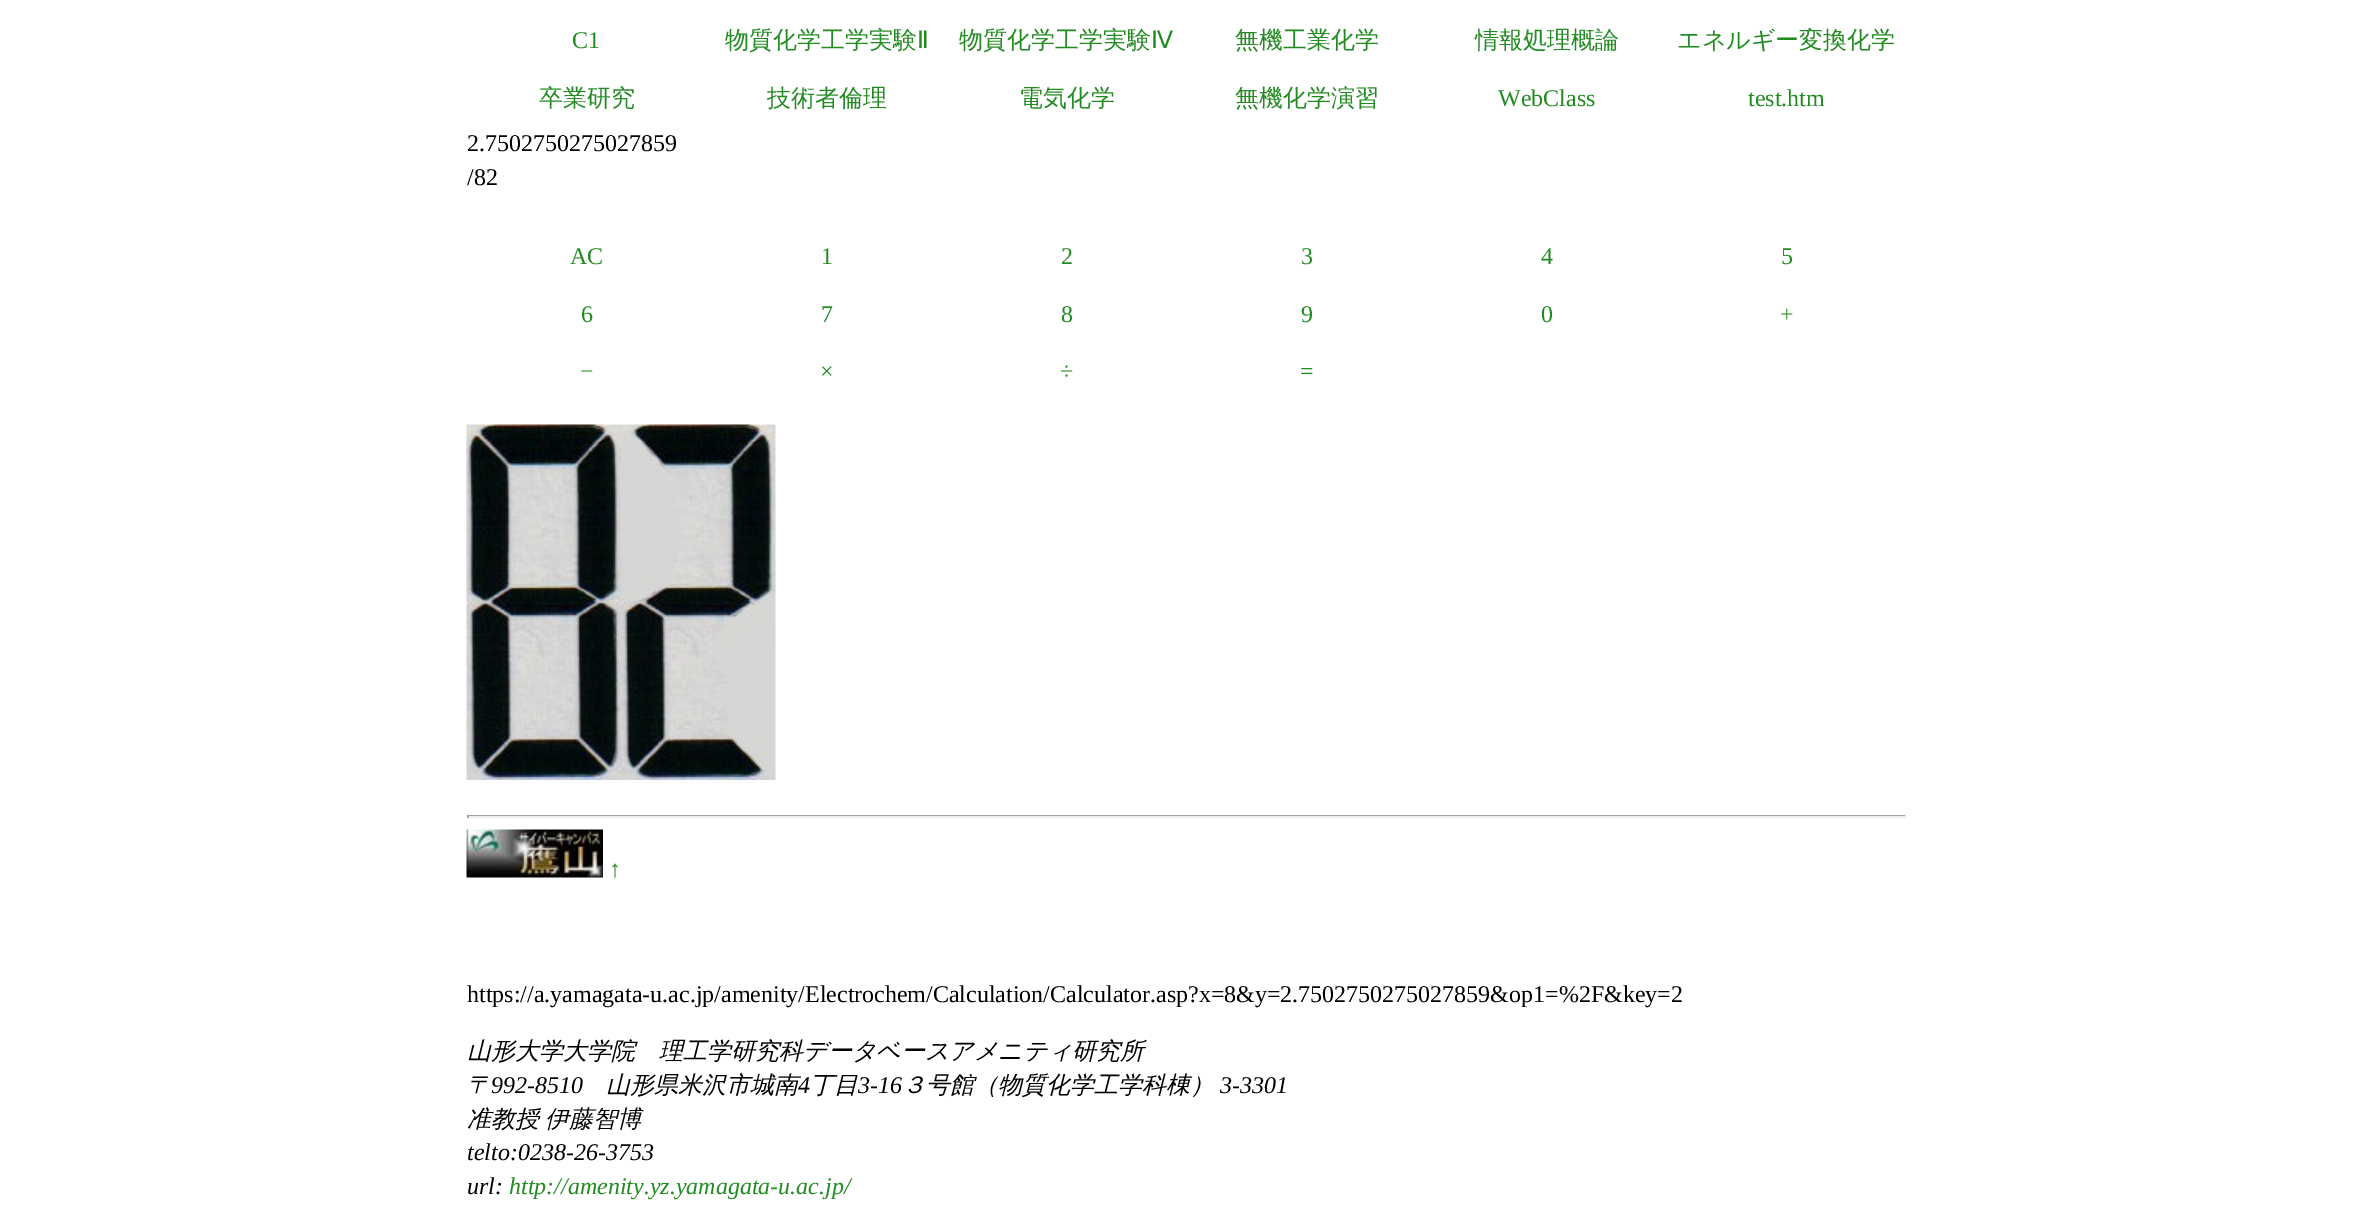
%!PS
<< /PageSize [2372 1221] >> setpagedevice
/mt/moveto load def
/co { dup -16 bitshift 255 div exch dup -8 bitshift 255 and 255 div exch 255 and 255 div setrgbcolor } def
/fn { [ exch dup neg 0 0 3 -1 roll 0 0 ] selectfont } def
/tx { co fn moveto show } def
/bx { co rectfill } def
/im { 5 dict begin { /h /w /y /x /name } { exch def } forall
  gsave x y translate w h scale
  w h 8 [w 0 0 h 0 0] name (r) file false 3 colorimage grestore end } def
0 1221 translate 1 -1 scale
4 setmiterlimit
0 0 2372 1221 16#FFFFFF bx
(media/1.raw) 466 424 155 356 im
(media/2.raw) 621 424 155 356 im
467 815 1440 1 16#9F9F9F bx
1905 815 2 3 16#EEEEEE bx
467 816 1440 2 16#EEEEEE bx
467 815 2 3 16#9F9F9F bx
(media/3.raw) 466 829 137 49 im
(C1) 572 48 /LiberationSerif-Regular 24 16#228B22 tx
(物質化学工学実験) 725 48 /WenQuanYiZenHei-Medium 24 16#228B22 tx
(Ⅱ) 917 48 /DejaVuSans-Regular 24 16#228B22 tx
(物質化学工学実験) 959 48 /WenQuanYiZenHei-Medium 24 16#228B22 tx
(Ⅳ) 1151 48 /DejaVuSans-Regular 24 16#228B22 tx
(無機工業化学) 1235 48 /WenQuanYiZenHei-Medium 24 16#228B22 tx
(情報処理概論) 1475 48 /WenQuanYiZenHei-Medium 24 16#228B22 tx
(エネルギー変換化学) 1677 48 /WenQuanYiZenHei-Medium 24 16#228B22 tx
(卒業研究) 539 106 /WenQuanYiZenHei-Medium 24 16#228B22 tx
(技術者倫理) 767 106 /WenQuanYiZenHei-Medium 24 16#228B22 tx
(電気化学) 1019 106 /WenQuanYiZenHei-Medium 24 16#228B22 tx
(無機化学演習) 1235 106 /WenQuanYiZenHei-Medium 24 16#228B22 tx
(WebClass) 1498 106 /LiberationSerif-Regular 24 16#228B22 tx
(test.htm) 1748 106 /LiberationSerif-Regular 24 16#228B22 tx
(2.7502750275027859) 467 151 /LiberationSerif-Regular 24 16#000000 tx
(/82) 467 185 /LiberationSerif-Regular 24 16#000000 tx
(AC) 570 264 /LiberationSerif-Regular 24 16#228B22 tx
(1) 821 264 /LiberationSerif-Regular 24 16#228B22 tx
(2) 1061 264 /LiberationSerif-Regular 24 16#228B22 tx
(3) 1301 264 /LiberationSerif-Regular 24 16#228B22 tx
(4) 1541 264 /LiberationSerif-Regular 24 16#228B22 tx
(5) 1781 264 /LiberationSerif-Regular 24 16#228B22 tx
(6) 581 322 /LiberationSerif-Regular 24 16#228B22 tx
(7) 821 322 /LiberationSerif-Regular 24 16#228B22 tx
(8) 1061 322 /LiberationSerif-Regular 24 16#228B22 tx
(9) 1301 322 /LiberationSerif-Regular 24 16#228B22 tx
(0) 1541 322 /LiberationSerif-Regular 24 16#228B22 tx
(+) 1780 322 /LiberationSerif-Regular 24 16#228B22 tx
(−) 580 379 /LiberationSerif-Regular 24 16#228B22 tx
(×) 820 379 /LiberationSerif-Regular 24 16#228B22 tx
(÷) 1060 379 /LiberationSerif-Regular 24 16#228B22 tx
(=) 1300 379 /LiberationSerif-Regular 24 16#228B22 tx
(↑) 609 877 /LiberationSerif-Regular 24 16#228B22 tx
(https://a.yamagata-u.ac.jp/amenity/Electrochem/Calculation/Calculator.asp?x=8&y=2.7502750275027859&op1=%2F&key=2) 467 1002 /LiberationSerif-Regular 24 16#000000 tx
(山形大学大学院　理工学研究科データベースアメニティ研究所) 467 1059 /WenQuanYiZenHei-MediumItalic 24 16#000000 tx
(〒) 467 1093 /WenQuanYiZenHei-MediumItalic 24 16#000000 tx
(992-8510) 491 1093 /LiberationSerif-Italic 24 16#000000 tx
(山形県米沢市城南) 606 1093 /WenQuanYiZenHei-MediumItalic 24 16#000000 tx
(4) 798 1093 /LiberationSerif-Italic 24 16#000000 tx
(丁目) 810 1093 /WenQuanYiZenHei-MediumItalic 24 16#000000 tx
(3-16) 858 1093 /LiberationSerif-Italic 24 16#000000 tx
(３号館（物質化学工学科棟）) 902 1093 /WenQuanYiZenHei-MediumItalic 24 16#000000 tx
(3-3301) 1220 1093 /LiberationSerif-Italic 24 16#000000 tx
/WenQuanYiZenHei-MediumItalic 24 fn
467 1127 mt -1 0 32 (准教授 伊藤智博) widthshow
(telto:0238-26-3753) 467 1160 /LiberationSerif-Italic 24 16#000000 tx
(url:) 467 1194 /LiberationSerif-Italic 24 16#000000 tx
(http://amenity.yz.yamagata-u.ac.jp/) 509 1194 /LiberationSerif-Italic 24 16#228B22 tx
showpage
